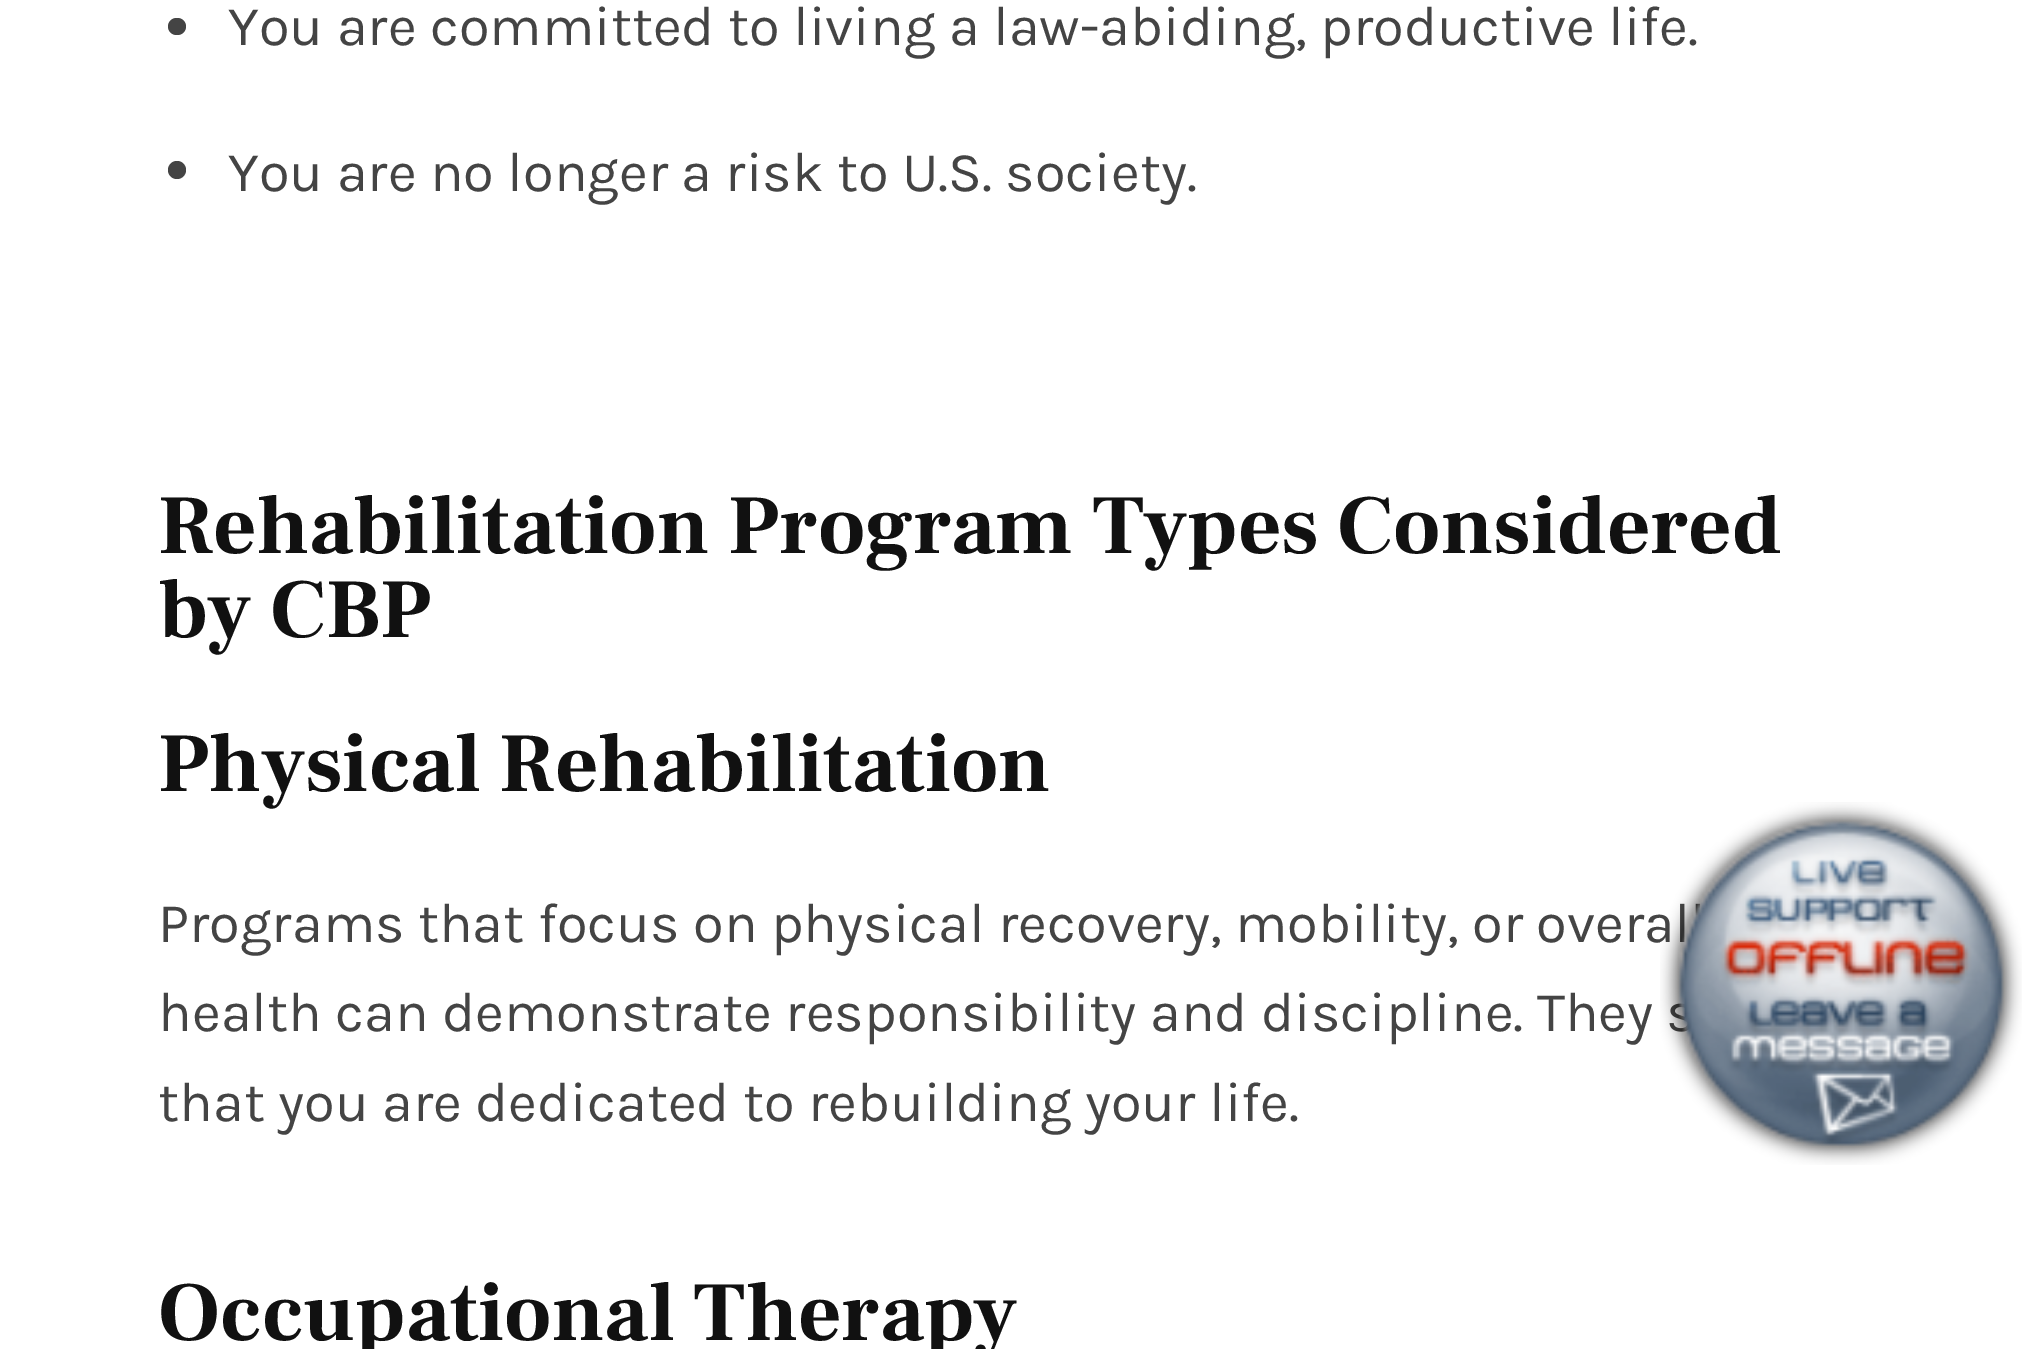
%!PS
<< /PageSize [2027 1349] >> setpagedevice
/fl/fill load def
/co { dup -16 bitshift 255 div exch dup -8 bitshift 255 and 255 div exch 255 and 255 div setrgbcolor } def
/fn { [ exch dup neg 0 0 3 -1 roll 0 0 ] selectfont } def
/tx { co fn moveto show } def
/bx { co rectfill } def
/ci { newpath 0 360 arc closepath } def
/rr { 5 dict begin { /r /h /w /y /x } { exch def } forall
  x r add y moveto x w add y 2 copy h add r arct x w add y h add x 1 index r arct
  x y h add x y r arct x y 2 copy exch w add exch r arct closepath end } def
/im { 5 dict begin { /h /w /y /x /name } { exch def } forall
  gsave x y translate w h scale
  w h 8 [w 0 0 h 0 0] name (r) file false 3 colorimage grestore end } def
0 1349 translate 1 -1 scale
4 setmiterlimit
0 0 2027 1349 16#FFFFFF bx
16#444444 co
168 18 18 17 8.5 rr fl
177 170 9 ci fl
(You are committed to living a law-abiding, productive life.) 228 45 /Karla-Regular 56 16#444444 tx
(You are no longer a risk to U.S. society.) 228 191 /Karla-Regular 56 16#444444 tx
(Rehabilitation Program Types Considered) 158 553 /FrankRuhlLibre-Bold 84 16#111111 tx
(by CBP) 158 637 /FrankRuhlLibre-Bold 84 16#111111 tx
(Physical Rehabilitation) 158 791 /FrankRuhlLibre-Bold 84 16#111111 tx
(Programs that focus on physical recovery, mobility, or overal) 158 942 /Karla-Regular 56 16#444444 tx
(health can demonstrate responsibility and discipline. They s) 158 1031 /Karla-Regular 56 16#444444 tx
(that you are dedicated to rebuilding your life.) 158 1121 /Karla-Regular 56 16#444444 tx
(Occupational Therapy) 158 1340 /FrankRuhlLibre-Bold 84 16#111111 tx
(media/1.raw) 1660 802 362 363 im
showpage
